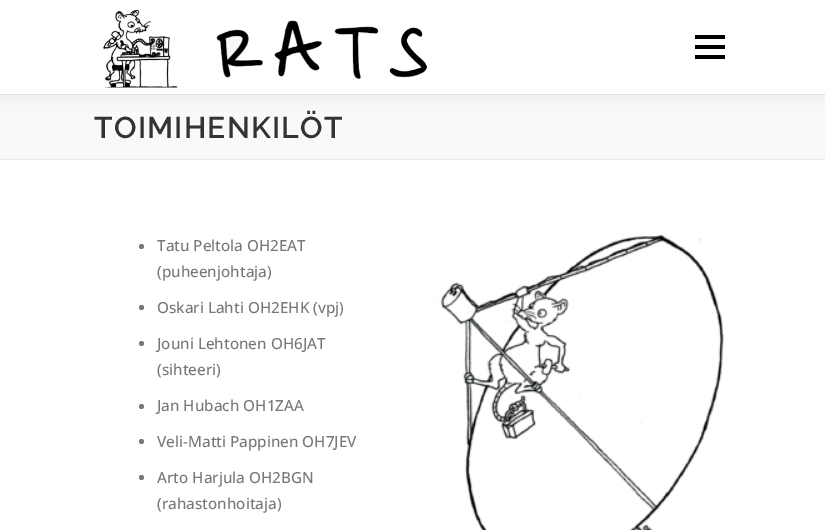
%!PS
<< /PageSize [825 530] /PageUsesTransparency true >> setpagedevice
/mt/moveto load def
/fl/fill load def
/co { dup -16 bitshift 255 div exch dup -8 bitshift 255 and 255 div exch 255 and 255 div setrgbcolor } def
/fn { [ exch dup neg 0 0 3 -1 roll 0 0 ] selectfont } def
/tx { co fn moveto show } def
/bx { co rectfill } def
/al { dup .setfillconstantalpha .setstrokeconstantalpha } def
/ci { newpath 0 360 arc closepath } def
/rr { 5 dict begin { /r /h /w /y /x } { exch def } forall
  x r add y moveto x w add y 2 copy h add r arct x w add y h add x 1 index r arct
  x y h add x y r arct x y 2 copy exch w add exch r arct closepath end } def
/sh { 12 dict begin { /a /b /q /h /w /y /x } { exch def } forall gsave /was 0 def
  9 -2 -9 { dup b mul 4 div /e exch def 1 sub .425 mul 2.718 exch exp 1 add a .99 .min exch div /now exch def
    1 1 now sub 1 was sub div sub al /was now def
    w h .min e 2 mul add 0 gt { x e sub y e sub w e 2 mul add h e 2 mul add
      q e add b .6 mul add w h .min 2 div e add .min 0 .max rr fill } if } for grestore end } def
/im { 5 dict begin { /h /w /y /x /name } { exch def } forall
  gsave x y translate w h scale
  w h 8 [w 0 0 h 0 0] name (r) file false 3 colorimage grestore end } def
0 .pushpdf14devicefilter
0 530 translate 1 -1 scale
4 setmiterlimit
0 0 825 530 16#FFFFFF bx
0 95 825 64 16#F8F9F9 bx
0 94 825 1 16#E9E9E9 bx
16#323232 co
0 6 825 94 0 6 .06 sh
0 1 825 93 16#FFFFFF bx
(media/1.raw) 103 10 325 78 im
695 45 30 4 16#000000 bx
695 35 30 4 16#000000 bx
695 55 30 4 16#000000 bx
0 159 825 1 16#E9E9E9 bx
16#777777 co
141.5 246.5 2.5 ci fl
141.5 307.5 2.5 ci fl
141.5 343.5 2.5 ci fl
141.5 406.5 2.5 ci fl
141.5 441.5 2.5 ci fl
141.5 477.5 2.5 ci fl
(media/2.raw) 432 234 293 296 im
/Raleway-SemiBold 30 fn
16#333333 co
94 138 mt 1.25 0 (TOIMIHENKILÖT) ashow
(Tatu Peltola OH2EAT) 157 251 /OpenSans-Medium 15.25 16#777777 tx
(\(puheenjohtaja\)) 157 277 /OpenSans-Medium 15.25 16#777777 tx
(Oskari Lahti OH2EHK \(vpj\)) 157 313 /OpenSans-Medium 15.25 16#777777 tx
(Jouni Lehtonen OH6JAT) 157 349 /OpenSans-Medium 15.25 16#777777 tx
(\(sihteeri\)) 157 375 /OpenSans-Medium 15.25 16#777777 tx
(Jan Hubach OH1ZAA) 157 411 /OpenSans-Medium 15.25 16#777777 tx
(Veli-Matti Pappinen OH7JEV) 157 447 /OpenSans-Medium 15.25 16#777777 tx
(Arto Harjula OH2BGN) 157 483 /OpenSans-Medium 15.25 16#777777 tx
(\(rahastonhoitaja\)) 157 509 /OpenSans-Medium 15.25 16#777777 tx
.poppdf14devicefilter showpage
